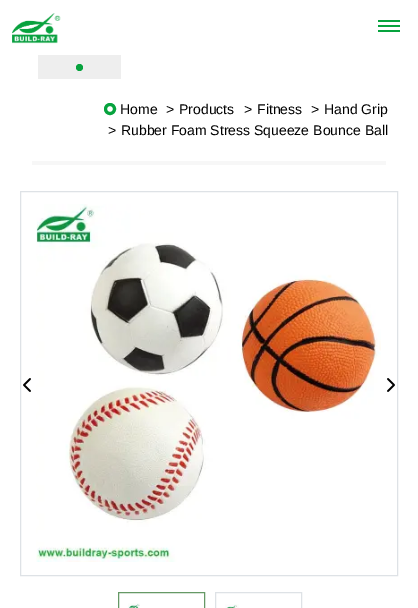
%!PS
<< /PageSize [418 608] >> setpagedevice
/fl/fill load def
/st/stroke load def
/lw/setlinewidth load def
/co { dup -16 bitshift 255 div exch dup -8 bitshift 255 and 255 div exch 255 and 255 div setrgbcolor } def
/fn { [ exch dup neg 0 0 3 -1 roll 0 0 ] selectfont } def
/tx { co fn moveto show } def
/bx { co rectfill } def
/ci { newpath 0 360 arc closepath } def
/im { 5 dict begin { /h /w /y /x /name } { exch def } forall
  gsave x y translate w h scale
  w h 8 [w 0 0 h 0 0] name (r) file false 3 colorimage grestore end } def
0 608 translate 1 -1 scale
4 setmiterlimit
0 0 418 608 16#FFFFFF bx
(media/1.raw) 12 13 49 31 im
378 20 22 2 16#07A33E bx
378 25 22 2 16#07A33E bx
378 30 22 2 16#07A33E bx
38 55 83 24 16#EEEEEE bx
16#07A33E co
79.5 67.5 3.5 ci fl
32 161 354 4 16#F7F7F7 bx
16#07A33E co
3 lw
110 109 4.5 ci st
16#DEE2E6 co
1 lw
20.5 191.5 377 384 rectstroke
(media/2.raw) 36 204 345 358 im
(media/3.raw) 23 378 8 14 im
(media/4.raw) 387 378 8 14 im
16#669966 co
118.5 592.5 86 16 rectstroke
(media/5.raw) 128 603 12 5 im
16#DEE2E6 co
215.5 592.5 86 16 rectstroke
(media/6.raw) 225 604 14 4 im
(Home) 120 114 /LiberationSans-Regular 14 16#000000 tx
(>) 166 114 /LiberationSans-Regular 14 16#000000 tx
(Products) 179 114 /LiberationSans-Regular 14 16#000000 tx
(>) 244 114 /LiberationSans-Regular 14 16#000000 tx
(Fitness) 257 114 /LiberationSans-Regular 14 16#000000 tx
(>) 311 114 /LiberationSans-Regular 14 16#000000 tx
(Hand Grip) 324 114 /LiberationSans-Regular 14 16#000000 tx
(>) 108 135 /LiberationSans-Regular 14 16#000000 tx
(Rubber Foam Stress Squeeze Bounce Ball) 121 135 /LiberationSans-Regular 14 16#000000 tx
showpage
